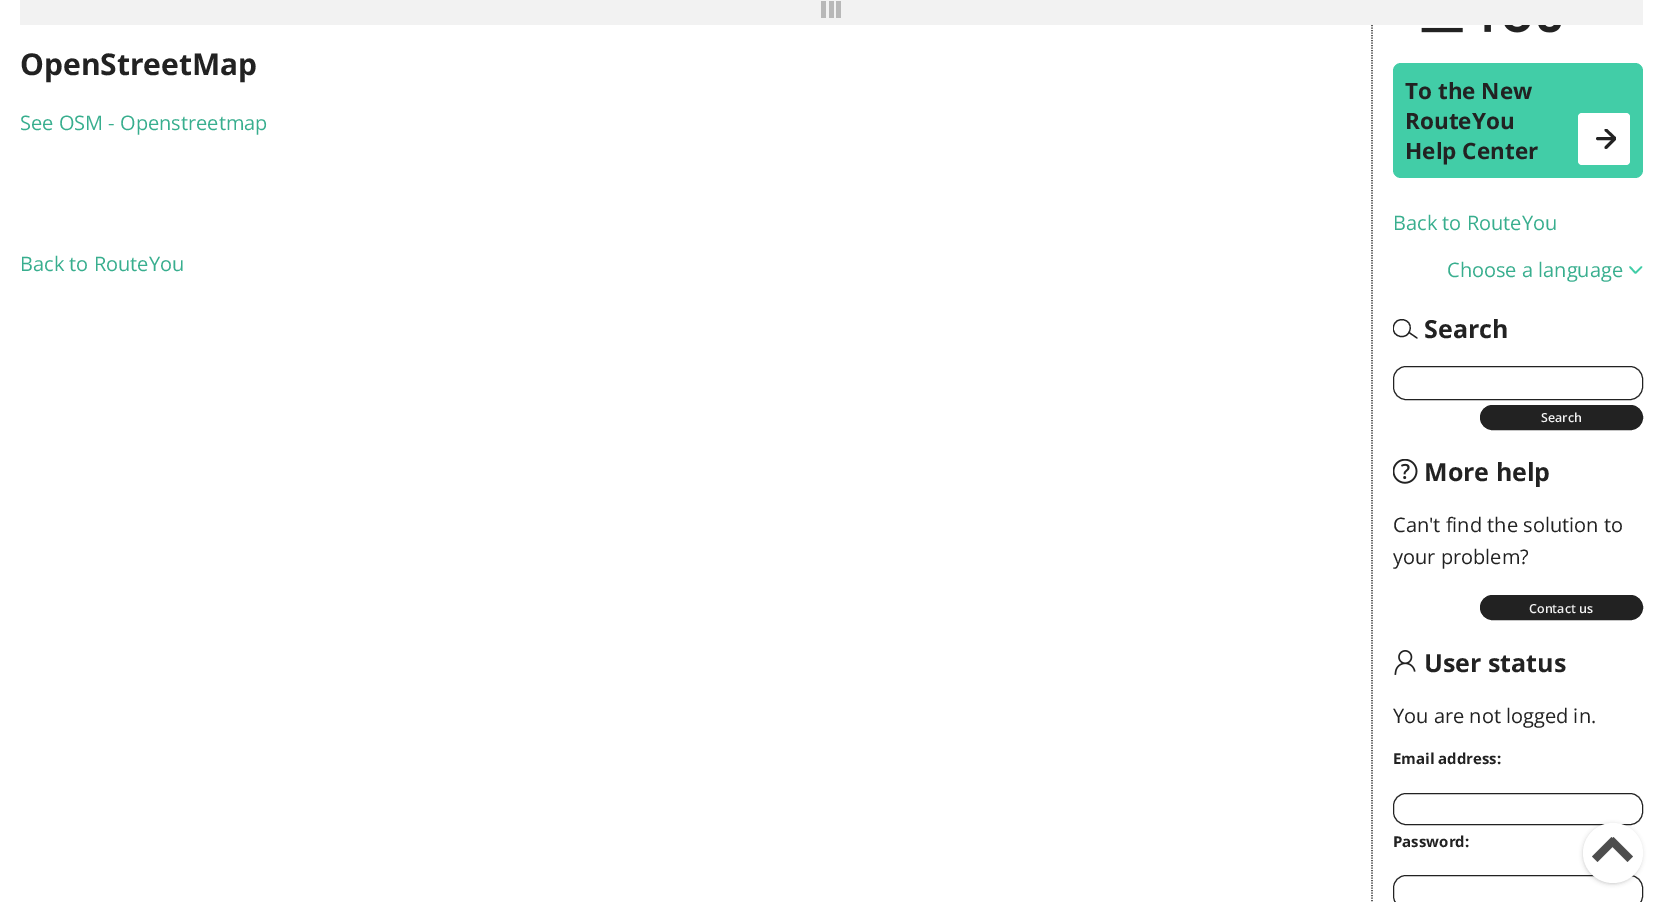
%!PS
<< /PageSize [1662 902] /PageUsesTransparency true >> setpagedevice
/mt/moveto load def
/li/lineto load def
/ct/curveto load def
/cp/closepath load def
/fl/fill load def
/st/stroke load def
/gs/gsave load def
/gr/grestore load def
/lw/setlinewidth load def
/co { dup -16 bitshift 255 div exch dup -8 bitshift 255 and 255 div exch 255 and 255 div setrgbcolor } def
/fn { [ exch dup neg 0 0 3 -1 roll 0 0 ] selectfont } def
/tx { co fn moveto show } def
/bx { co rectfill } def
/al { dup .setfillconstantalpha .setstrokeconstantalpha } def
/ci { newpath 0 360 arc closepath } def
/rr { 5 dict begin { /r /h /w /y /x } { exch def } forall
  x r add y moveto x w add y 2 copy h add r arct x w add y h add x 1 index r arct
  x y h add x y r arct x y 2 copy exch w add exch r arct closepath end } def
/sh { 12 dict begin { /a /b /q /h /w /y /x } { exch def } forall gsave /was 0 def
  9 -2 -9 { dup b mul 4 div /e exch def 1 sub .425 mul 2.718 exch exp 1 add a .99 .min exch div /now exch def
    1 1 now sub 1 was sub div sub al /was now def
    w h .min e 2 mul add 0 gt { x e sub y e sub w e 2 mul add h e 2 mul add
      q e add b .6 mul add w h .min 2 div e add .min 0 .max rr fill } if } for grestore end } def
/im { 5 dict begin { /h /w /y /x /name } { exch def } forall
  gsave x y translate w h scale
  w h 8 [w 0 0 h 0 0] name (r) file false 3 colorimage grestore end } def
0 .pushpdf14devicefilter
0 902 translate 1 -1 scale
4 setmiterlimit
0 0 1662 902 16#FFFFFF bx
16#222222 co
1.2 lw
[1.25 1.25] 0 setdash
1372 -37.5 mt 1372 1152.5 li st
20 0 1623 25 16#F2F2F2 bx
829 1 5 17 16#B8B8B8 bx
821 1 5 17 16#B8B8B8 bx
836 1 5 17 16#B8B8B8 bx
(media/1.raw) 1421 25 140 8 im
16#42CDA7 co
1393 63 250 115 8 rr fl
16#FFFFFF co
1578 113 52 52 4 rr fl
gs
1596 129 20 20 rectclip
16#222222 co
2.9 lw
1 setlinecap
1 setlinejoin
[] 0 setdash
1597.5 138.5 mt 1615 138.5 li 1615 138.5 mt 1606 130 li 1615 138.5 mt 1606 147.5 li st
gr
16#42CDA7 co
1.7 lw
1 setlinecap
1 setlinejoin
[] 0 setdash
1641.5 267 mt 1635.5 273 li 1630 267 li st
gs
1393 316 25 25 rectclip
16#222222 co
1.2 lw
0 setlinejoin
1393.5 326.5 mt 1395.5 315.5 1412.5 318.5 1410 329.5 ct 1408 341 1391 337.5 1393.5 326.5 ct cp st
gr
16#222222 co
1.2 lw
0 setlinejoin
1409 332.5 mt 1417 338 li st
1 lw
0 setlinecap
1393.5 366.5 249 33 12.5 rr st
1480.5 405.5 162 24 12 rr gs fl gr
st
(media/2.raw) 1393 459 25 25 im
1480.5 595.5 162 24 12 rr gs fl gr
st
(media/3.raw) 1394 650 22 25 im
1393.5 793.5 249 31 12.5 rr st
1393.5 875.5 249 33 12.5 rr st
16#000000 co
1584 825 57 58 28.5 2.5 .3 sh
16#FFFFFF co
1613 853 30 ci fl
16#4D4D4D co
1613.5 837 mt 1633 856.5 li 1627.5 862 li 1608 842.5 li cp fl
1611.5 837 mt 1617 842.5 li 1597.5 862 li 1592 856.5 li cp fl
(OpenStreetMap) 20 75 /OpenSans-Bold 30 16#222222 tx
(See OSM - Openstreetmap) 20 130 /OpenSans-Regular 20 16#38AE8E tx
(Back to RouteYou) 20 271 /OpenSans-Regular 20 16#38AE8E tx
(To the New) 1405 99 /OpenSans-Bold 22.5 16#222222 tx
(RouteYou) 1405 129 /OpenSans-Bold 22.5 16#222222 tx
(Help Center) 1405 159 /OpenSans-Bold 22.5 16#222222 tx
(Back to RouteYou) 1393 230 /OpenSans-Regular 20 16#38AE8E tx
(Choose a language) 1447 277 /OpenSans-Regular 20 16#38AE8E tx
(Search) 1424 338 /OpenSans-Bold 25 16#222222 tx
(Search) 1541 422 /OpenSans-SemiBold 12.5 16#F2F2F2 tx
(More help) 1424 481 /OpenSans-Bold 25 16#222222 tx
(Can't find the solution to) 1393 532 /OpenSans-Regular 20 16#222222 tx
(your problem?) 1393 564 /OpenSans-Regular 20 16#222222 tx
(Contact us) 1529 613 /OpenSans-SemiBold 12.5 16#F2F2F2 tx
(User status) 1424 672 /OpenSans-Bold 25 16#222222 tx
(You are not logged in.) 1393 723 /OpenSans-Regular 20 16#222222 tx
(Email address:) 1393 764 /OpenSans-Bold 15 16#222222 tx
(Password:) 1393 847 /OpenSans-Bold 15 16#222222 tx
.poppdf14devicefilter showpage
